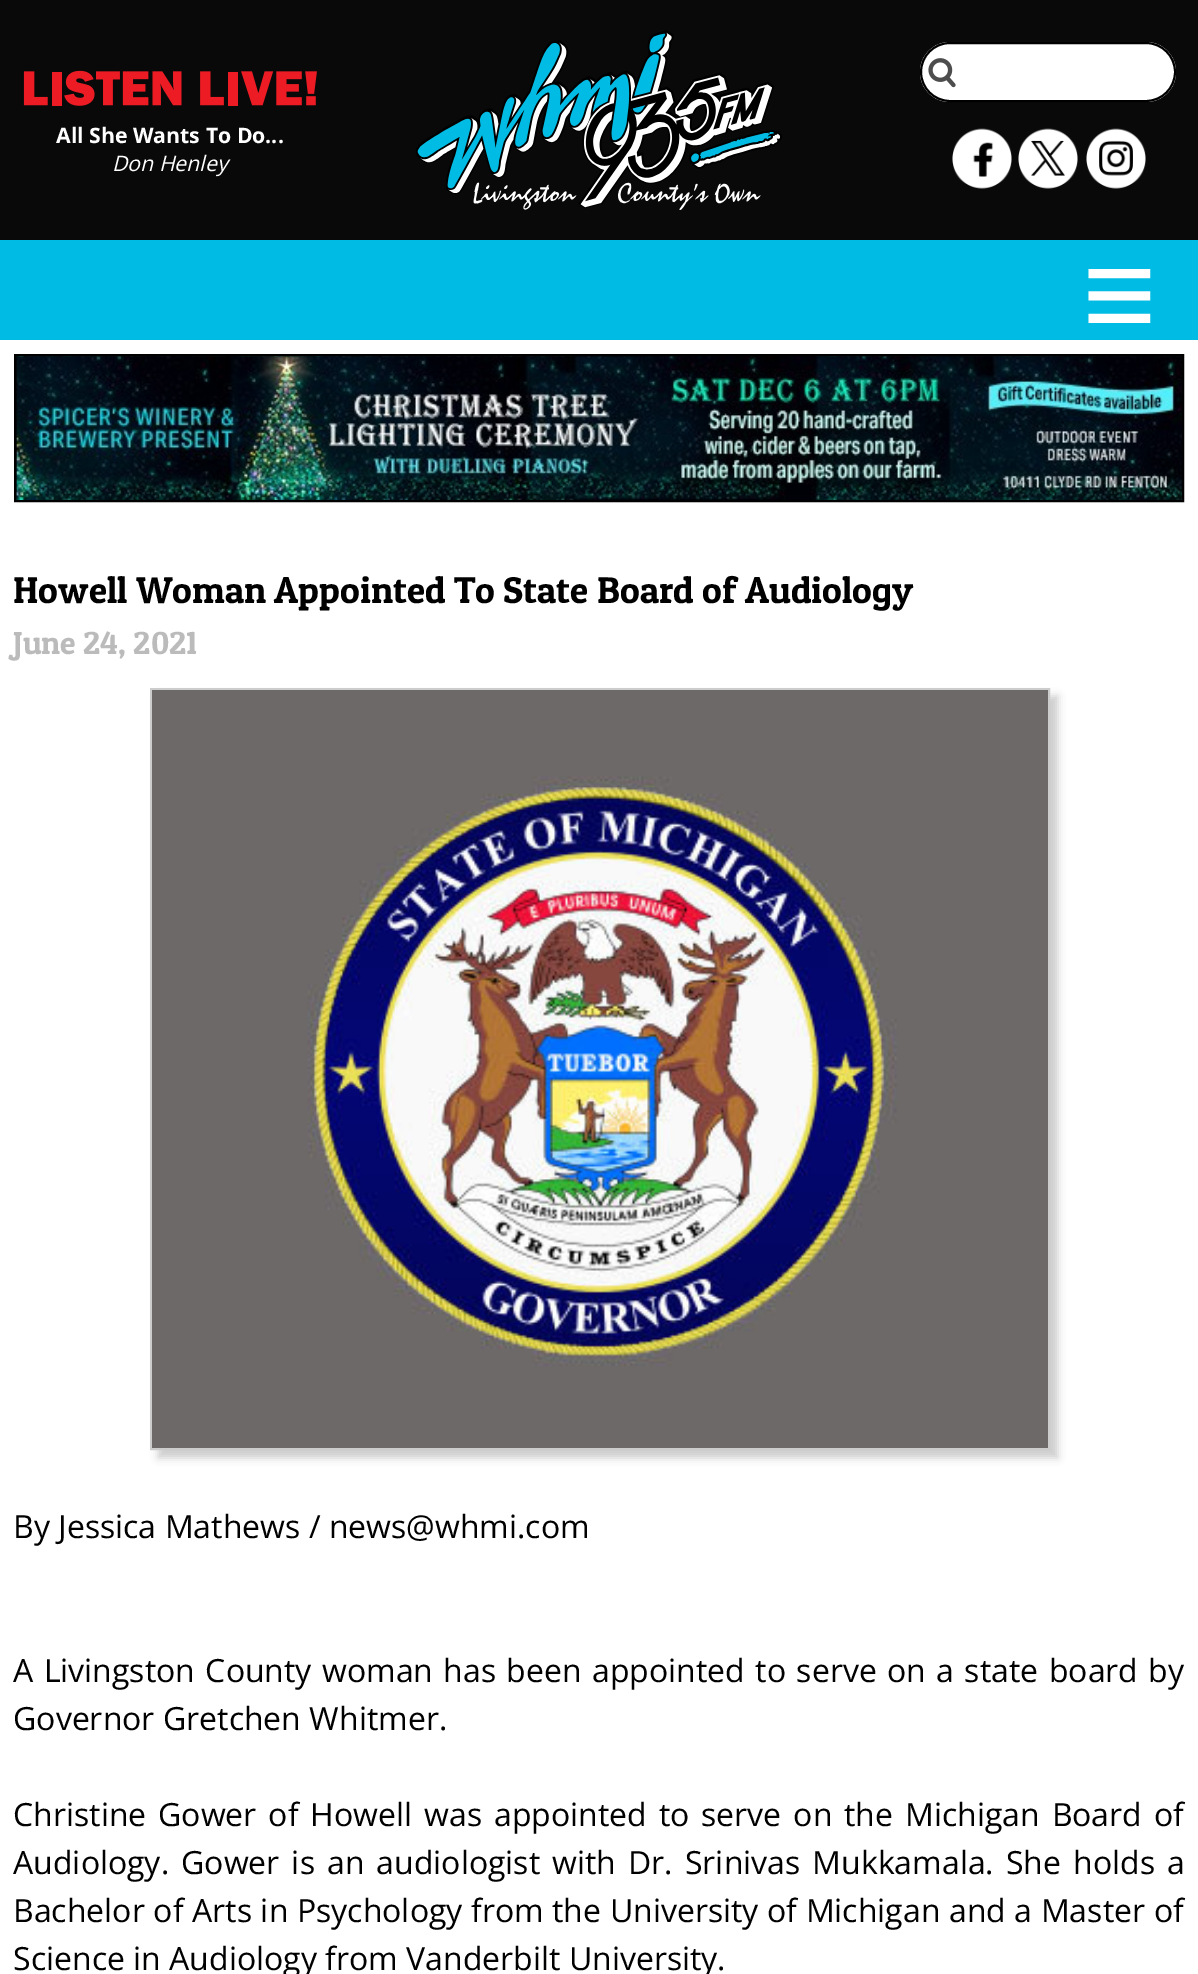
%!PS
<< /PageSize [1198 1974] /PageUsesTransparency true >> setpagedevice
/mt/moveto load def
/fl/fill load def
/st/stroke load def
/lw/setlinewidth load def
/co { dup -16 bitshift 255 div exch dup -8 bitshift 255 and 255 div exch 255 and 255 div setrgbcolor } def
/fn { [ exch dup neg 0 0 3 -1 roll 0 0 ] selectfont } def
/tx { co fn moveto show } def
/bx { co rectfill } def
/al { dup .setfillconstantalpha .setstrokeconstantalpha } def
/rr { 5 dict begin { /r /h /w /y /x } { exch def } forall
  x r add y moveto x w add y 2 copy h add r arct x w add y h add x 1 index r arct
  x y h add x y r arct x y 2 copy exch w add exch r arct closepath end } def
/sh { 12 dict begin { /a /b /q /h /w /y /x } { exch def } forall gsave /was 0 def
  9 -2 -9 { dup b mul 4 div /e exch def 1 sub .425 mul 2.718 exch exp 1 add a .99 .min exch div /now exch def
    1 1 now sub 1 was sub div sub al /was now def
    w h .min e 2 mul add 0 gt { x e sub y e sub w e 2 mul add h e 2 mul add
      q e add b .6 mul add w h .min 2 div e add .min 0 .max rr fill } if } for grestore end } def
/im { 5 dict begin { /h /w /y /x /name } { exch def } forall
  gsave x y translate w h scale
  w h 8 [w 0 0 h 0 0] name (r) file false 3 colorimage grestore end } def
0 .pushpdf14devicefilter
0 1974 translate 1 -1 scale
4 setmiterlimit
0 0 1198 1974 16#FFFFFF bx
0 0 1198 240 16#090909 bx
(media/1.raw) 23 70 294 36 im
(media/2.raw) 416 30 366 180 im
16#FFFFFF co
920 42 256 60 30 rr fl
(media/3.raw) 928 58 28 30 im
16#000000 co
2 lw
921 43 254 58 29 rr st
(media/4.raw) 952 128 60 61 im
(media/5.raw) 1018 128 60 61 im
(media/6.raw) 1086 128 60 61 im
0 240 1198 100 16#00BBE4 bx
(media/7.raw) 16 356 1166 144 im
16#000000 co
15 355 1168 146 rectstroke
16#CCCCCC co
158 696 900 762 0 4 1 sh
151 689 898 760 rectstroke
(media/8.raw) 152 690 896 758 im
(All She Wants To Do...) 56 143 /OpenSans-Bold 21.25 16#FFFFFF tx
(Don Henley) 112 171 /OpenSans-Italic 21.25 16#FFFFFF tx
(≡) 1082 340 /LiberationSerif-Bold 133 16#FFFFFF tx
(Howell Woman Appointed To State Board of Audiology) 13 603 /PatuaOne-Regular 37.3 16#000000 tx
(June 24, 2021) 13 654 /PatuaOne-Regular 32 16#BBBBBB tx
(By Jessica Mathews / news@whmi.com) 13 1538 /OpenSans-Regular 32 16#000000 tx
13 1682 mt 2.1 0 32 (A Livingston County woman has been appointed to serve on a state board by) widthshow
(Governor Gretchen Whitmer.) 13 1730 /OpenSans-Regular 32 16#000000 tx
13 1826 mt 3.6 0 32 (Christine Gower of Howell was appointed to serve on the Michigan Board of) widthshow
(Audiology.) 13 1874 /OpenSans-Regular 32 16#000000 tx
181 1874 mt 3.75 0 32 (Gower is an audiologist with Dr. Srinivas Mukkamala. She holds a) widthshow
13 1922 mt .25 0 32 (Bachelor of Arts in Psychology from the University of Michigan and a Master of) widthshow
(Science in Audiology from Vanderbilt University.) 13 1970 /OpenSans-Regular 32 16#000000 tx
.poppdf14devicefilter showpage
